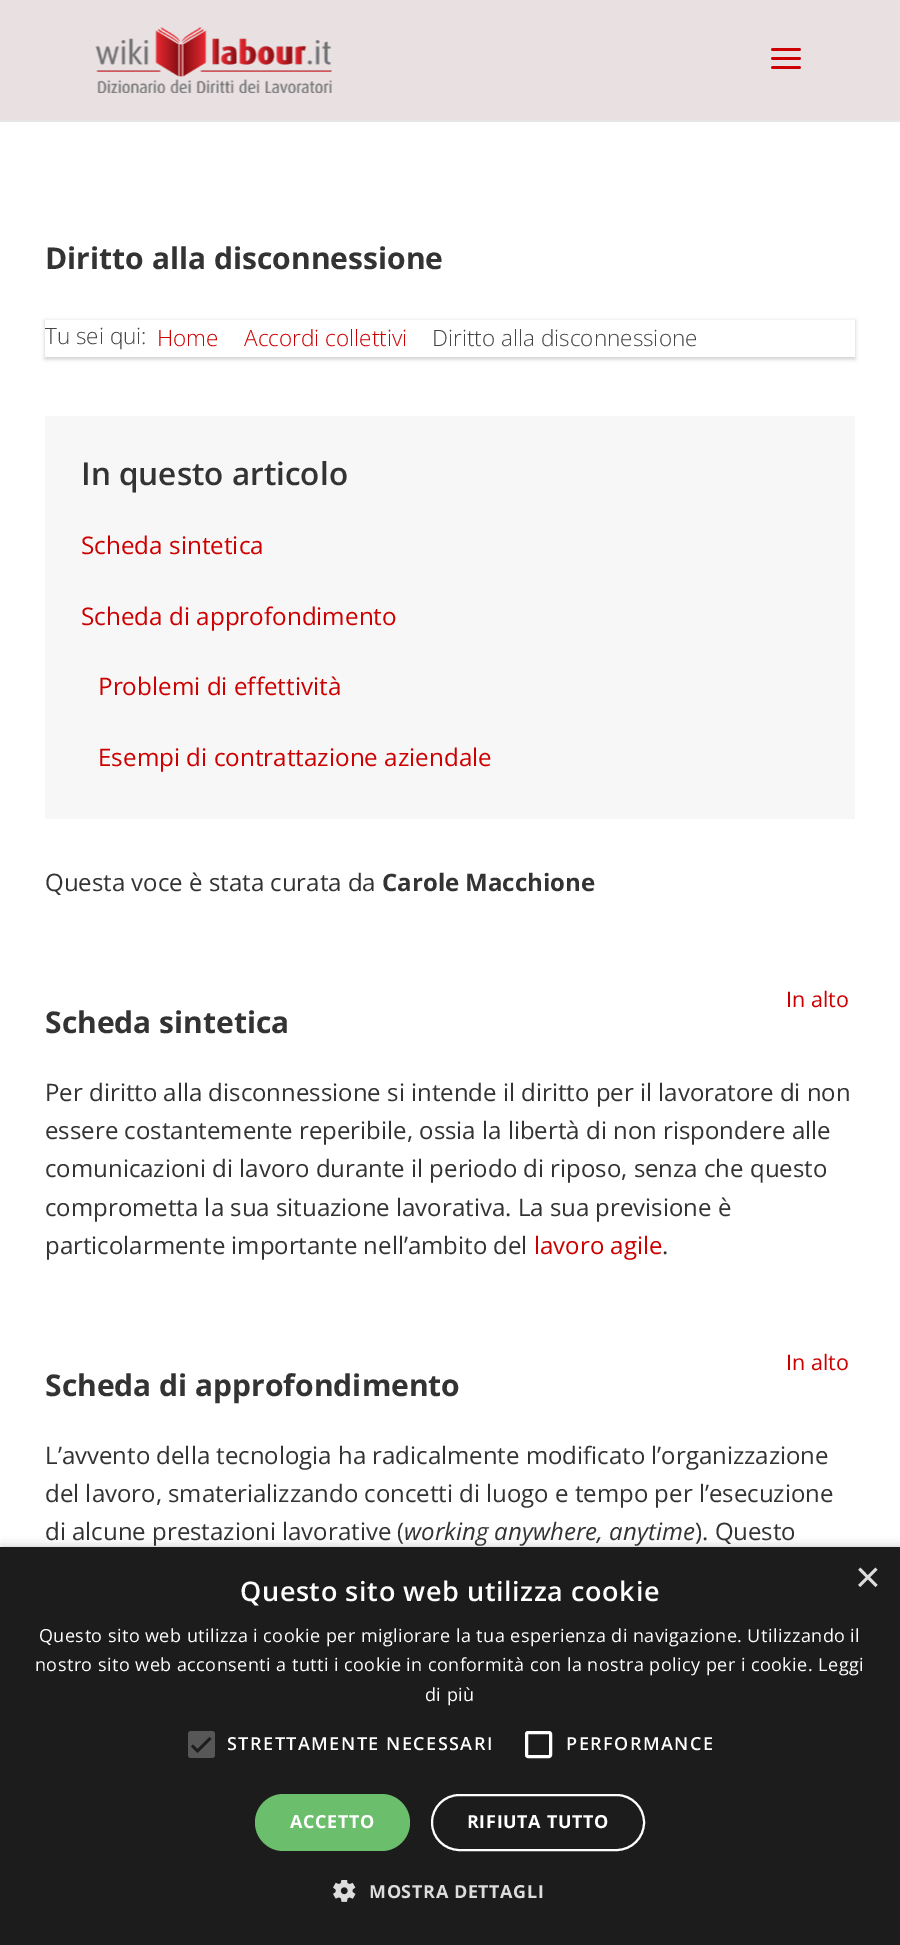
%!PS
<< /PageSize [900 1945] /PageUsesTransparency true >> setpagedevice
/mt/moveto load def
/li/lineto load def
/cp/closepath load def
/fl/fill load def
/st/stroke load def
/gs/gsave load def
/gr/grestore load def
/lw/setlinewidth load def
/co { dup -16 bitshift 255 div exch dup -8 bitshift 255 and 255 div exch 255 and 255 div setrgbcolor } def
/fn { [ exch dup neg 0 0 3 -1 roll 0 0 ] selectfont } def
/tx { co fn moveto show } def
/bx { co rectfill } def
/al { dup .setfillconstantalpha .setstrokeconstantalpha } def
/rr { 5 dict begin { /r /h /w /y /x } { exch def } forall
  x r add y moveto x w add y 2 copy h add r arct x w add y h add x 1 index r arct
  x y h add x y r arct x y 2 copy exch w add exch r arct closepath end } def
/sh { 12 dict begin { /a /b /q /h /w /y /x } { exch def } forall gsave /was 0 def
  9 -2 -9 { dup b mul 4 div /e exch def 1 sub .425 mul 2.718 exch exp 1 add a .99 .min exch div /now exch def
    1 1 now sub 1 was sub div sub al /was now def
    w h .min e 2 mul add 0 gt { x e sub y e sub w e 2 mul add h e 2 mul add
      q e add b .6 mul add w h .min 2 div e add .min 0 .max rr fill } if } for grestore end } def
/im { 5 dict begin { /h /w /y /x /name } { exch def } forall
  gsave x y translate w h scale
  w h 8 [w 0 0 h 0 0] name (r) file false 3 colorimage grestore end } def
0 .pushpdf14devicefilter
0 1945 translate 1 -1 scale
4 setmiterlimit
0 0 900 1945 16#FFFFFF bx
0 120 900 2 16#E6E6E6 bx
0 0 900 120 16#E9E0E1 bx
(media/1.raw) 95 27 237 66 im
(media/2.raw) 771 48 30 21 im
gs
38 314 mt 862 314 li 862 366 li 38 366 li cp 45 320 mt 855 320 li 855 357 li 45 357 li cp eoclip newpath
16#000000 co
45 321 810 38 0 2 .2 sh
gr
45 416 810 403 16#F7F7F7 bx
16#000000 co
2 1550 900 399 0 6 .35 sh
0 1547 900 398 16#1C1C1C bx
16#575757 co
188 1731 27 27 3 rr fl
16#1C1C1C co
2.7 lw
192 1745.5 mt 197.5 1751 li 210.5 1738 li st
16#FFFFFF co
3 lw
526.5 1732.5 24 24 1.5 rr st
16#6BBE6B co
255 1794 155 57 28.5 rr fl
16#FFFFFF co
2 lw
432 1795 212 55 27.5 rr st
(media/3.raw) 333 1880 23 22 im
(Diritto alla disconnessione) 45 269 /OpenSans-Bold 30 16#333333 tx
(Tu sei qui:) 45 344 /OpenSans-Light 22.5 16#444444 tx
(Home) 157 346 /OpenSans-Light 22.5 16#CC0000 tx
(Accordi collettivi) 244 346 /OpenSans-Light 22.5 16#CC0000 tx
(Diritto alla disconnessione) 432 346 /OpenSans-Light 22.5 16#444444 tx
(In questo articolo) 81 485 /OpenSans-SemiBold 31.5 16#333333 tx
(Scheda sintetica) 81 554 /OpenSans-Regular 24.25 16#CC0000 tx
(Scheda di approfondimento) 81 625 /OpenSans-Regular 24.25 16#CC0000 tx
(Problemi di effettività) 98 695 /OpenSans-Regular 24.25 16#CC0000 tx
(Esempi di contrattazione aziendale) 98 766 /OpenSans-Regular 24.25 16#CC0000 tx
(Questa voce è stata curata da) 45 891 /OpenSans-Regular 24 16#333333 tx
(Carole Macchione) 382 891 /OpenSans-Bold 24 16#333333 tx
(In alto) 786 1007 /OpenSans-Regular 21.5 16#CC0000 tx
(Scheda sintetica) 45 1033 /OpenSans-Bold 30 16#333333 tx
(Per diritto alla disconnessione si intende il diritto per il lavoratore di non) 45 1101 /OpenSans-Regular 24 16#333333 tx
(essere costantemente reperibile, ossia la libertà di non rispondere alle) 45 1139 /OpenSans-Regular 24 16#333333 tx
(comunicazioni di lavoro durante il periodo di riposo, senza che questo) 45 1177 /OpenSans-Regular 24 16#333333 tx
(comprometta la sua situazione lavorativa. La sua previsione è) 45 1216 /OpenSans-Regular 24 16#333333 tx
(particolarmente importante nell’ambito del) 45 1254 /OpenSans-Regular 24 16#333333 tx
(lavoro agile) 534 1254 /OpenSans-Regular 24 16#CC0000 tx
(.) 662 1254 /OpenSans-Regular 24 16#333333 tx
(In alto) 786 1370 /OpenSans-Regular 21.5 16#CC0000 tx
(Scheda di approfondimento) 45 1396 /OpenSans-Bold 30 16#333333 tx
(L’avvento della tecnologia ha radicalmente modificato l’organizzazione) 45 1464 /OpenSans-Regular 24 16#333333 tx
(del lavoro, smaterializzando concetti di luogo e tempo per l’esecuzione) 45 1502 /OpenSans-Regular 24 16#333333 tx
(di alcune prestazioni lavorative \() 45 1540 /OpenSans-Regular 24 16#333333 tx
(working anywhere, anytime) 404 1540 /OpenSans-Italic 24 16#333333 tx
(\). Questo) 695 1540 /OpenSans-Regular 24 16#333333 tx
(×) 855 1592 /LiberationSans-Regular 44 16#DDDDDD tx
/OpenSans-SemiBold 27 fn
16#FFFFFF co
240 1601 mt .6 0 (Questo sito web utilizza cookie) ashow
/OpenSans-Regular 18 fn
39 1642 mt .45 0 (Questo sito web utilizza i cookie per migliorare la tua esperienza di navigazione. Utilizzando il) ashow
35 1671 mt .45 0 (nostro sito web acconsenti a tutti i cookie in conformità con la nostra policy per i cookie. Leggi) ashow
425 1701 mt .45 0 (di più) ashow
/OpenSans-SemiBold 18 fn
227 1750 mt 1.5 0 (STRETTAMENTE NECESSARI) ashow
566 1750 mt 1.5 0 (PERFORMANCE) ashow
/OpenSans-Bold 18 fn
290 1828 mt .6 0 (ACCETTO) ashow
467 1828 mt .6 0 (RIFIUTA TUTTO) ashow
16#DDDDDD co
369 1898 mt .6 0 (MOSTRA DETTAGLI) ashow
.poppdf14devicefilter showpage
